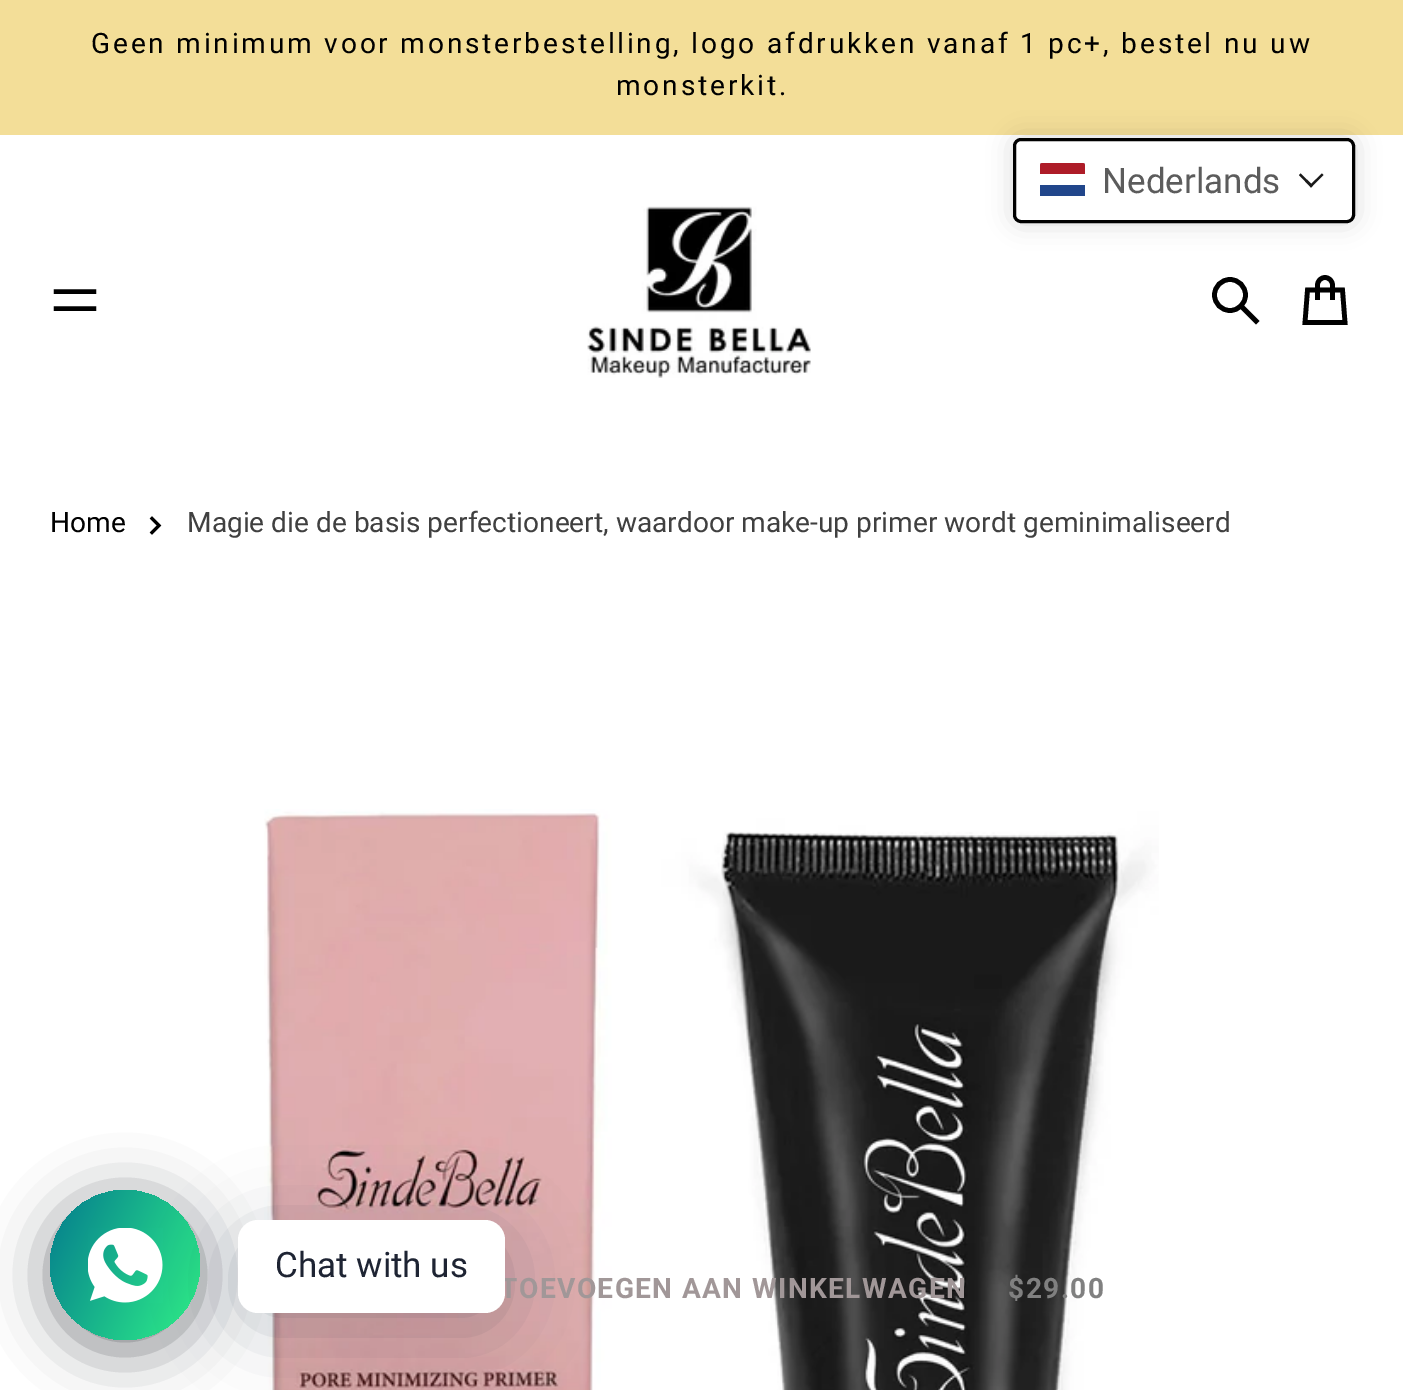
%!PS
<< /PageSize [1403 1390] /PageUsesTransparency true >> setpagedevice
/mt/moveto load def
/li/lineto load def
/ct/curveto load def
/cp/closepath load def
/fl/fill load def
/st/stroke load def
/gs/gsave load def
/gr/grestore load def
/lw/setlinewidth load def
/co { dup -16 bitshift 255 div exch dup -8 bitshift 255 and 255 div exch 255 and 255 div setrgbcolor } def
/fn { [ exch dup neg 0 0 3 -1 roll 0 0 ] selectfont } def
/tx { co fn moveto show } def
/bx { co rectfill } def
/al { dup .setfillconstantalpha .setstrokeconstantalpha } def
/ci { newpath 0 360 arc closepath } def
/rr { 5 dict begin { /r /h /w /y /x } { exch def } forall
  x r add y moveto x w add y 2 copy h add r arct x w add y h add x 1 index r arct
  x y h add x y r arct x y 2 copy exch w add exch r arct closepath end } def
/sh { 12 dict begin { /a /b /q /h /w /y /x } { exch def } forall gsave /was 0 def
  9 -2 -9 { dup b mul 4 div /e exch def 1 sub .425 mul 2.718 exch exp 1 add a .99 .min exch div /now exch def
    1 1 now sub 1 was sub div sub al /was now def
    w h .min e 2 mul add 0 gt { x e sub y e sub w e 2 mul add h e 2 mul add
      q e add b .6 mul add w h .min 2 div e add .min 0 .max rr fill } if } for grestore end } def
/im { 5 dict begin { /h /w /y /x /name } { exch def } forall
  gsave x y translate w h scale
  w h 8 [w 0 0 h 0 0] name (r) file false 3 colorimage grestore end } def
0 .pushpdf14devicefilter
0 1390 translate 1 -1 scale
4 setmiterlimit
0 0 1403 1390 16#FFFFFF bx
0 0 1403 135 16#F3DE98 bx
16#000000 co
4.4 lw
2 setlinecap
94 308.5 mt 56 308.5 li 94 291.5 mt 56 291.5 li st
(media/1.raw) 587 206 224 172 im
4.7 lw
1256 321 mt 1241 306 li st
0 setlinecap
1230 295 15.5 ci st
2 setlinecap
1317.5 297.5 mt 1317.5 285 li 1317.5 281 1321 277.5 1325 277.5 ct 1329 277.5 1332.5 281 1332.5 285 ct 1332.5 297.5 li 1305 322.5 mt 1345 322.5 li 1342.5 290 li 1307.5 290 li cp st
1013 138 342 85 8 12.5 .15 sh
16#FFFFFF co
1014.5 139.5 339 82 6.5 rr gs fl gr
16#000000 co
3 lw
0 setlinecap
st
gs
1040 163 45 35 2.5 rr clip newpath
16#21468B co
1042.5 163 mt 1082.5 163 li 1084 163 1085 164 1085 165.5 ct 1085 196 li 1040 196 li 1040 165.5 li 1040 164 1041 163 1042.5 163 ct cp fl
gr
16#FFFFFF co
1042.5 163 mt 1082.5 163 li 1084 163 1085 164 1085 165.5 ct 1085 185 li 1040 185 li 1040 165.5 li 1040 164 1041 163 1042.5 163 ct cp fl
16#AE1C28 co
1042.5 163 mt 1082.5 163 li 1084 163 1085 164 1085 165.5 ct 1085 174 li 1040 174 li 1040 165.5 li 1040 164 1041 163 1042.5 163 ct cp fl
16#1A1A1A co
1322 173.5 mt 1323.5 175 li 1311 187.5 li 1309.5 185.5 li cp fl
1300.5 173.5 mt 1313 185.5 li 1311 187.5 li 1299 175 li cp fl
16#000000 co
3.1 lw
2 setlinecap
152 532.5 mt 159 525.5 li 152 518.5 li st
(media/2.raw) 264 809 895 581 im
16#020610 co
50 1200 150 150 75 30 .5 sh
gs 125 1265 75 ci clip newpath
<< /ShadingType 2 /ColorSpace /DeviceRGB /Coords [35 1223 215 1307] /Extend [true true] /Function << /FunctionType 2 /Domain [0 1] /C0 [.016 .486 .553] /C1 [.184 .949 .537] /N 1 >> >> shfill gr
16#00122E co
238 1235 267 93 20 40 .24 sh
(media/3.raw) 88 1228 75 75 im
/Roboto-Regular 28.1 fn
16#000000 co
91 53 mt 2.8 0 (Geen minimum voor monsterbestelling, logo afdrukken vanaf 1 pc+, bestel nu uw) ashow
616 95 mt 2.8 0 (monsterkit.) ashow
(Nederlands) 1102 193 /Roboto-Regular 35 16#5C5C5C tx
(Home) 50 532 /Roboto-Regular 28.1 16#000000 tx
(Magie die de basis perfectioneert, waardoor make-up primer wordt geminimaliseerd) 187 532 /Roboto-Regular 28.1 16#404040 tx
/Roboto-Bold 28.1 fn
16#A19798 co
500 1298 mt 1.4 0 (TOEVOEGEN AAN WINKELWAGEN) ashow
16#808080 co
1008 1298 mt 1.4 0 ($29.00) ashow
16#FFFFFF co
238 1220 267 93 20 rr fl
(Chat with us) 275 1277 /Roboto-Regular 35 16#1E2433 tx
.poppdf14devicefilter showpage
